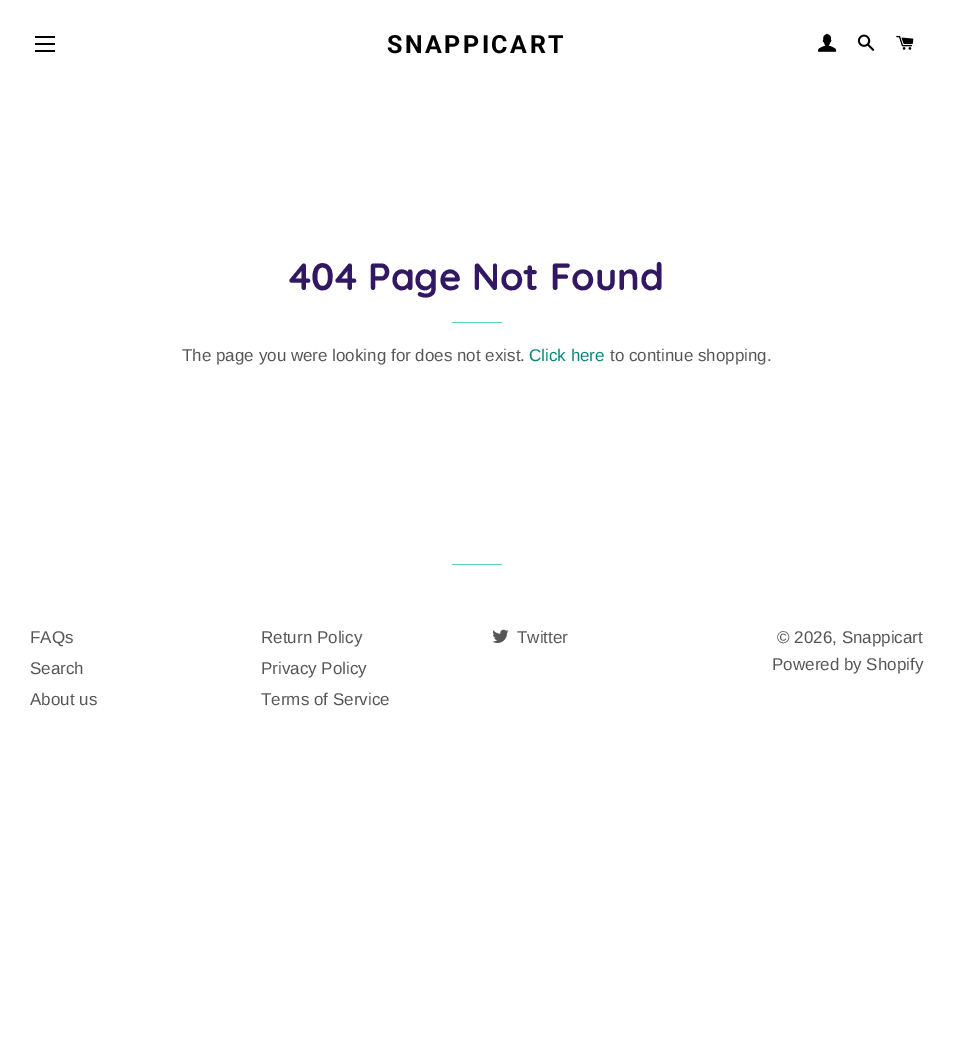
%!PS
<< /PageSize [953 1037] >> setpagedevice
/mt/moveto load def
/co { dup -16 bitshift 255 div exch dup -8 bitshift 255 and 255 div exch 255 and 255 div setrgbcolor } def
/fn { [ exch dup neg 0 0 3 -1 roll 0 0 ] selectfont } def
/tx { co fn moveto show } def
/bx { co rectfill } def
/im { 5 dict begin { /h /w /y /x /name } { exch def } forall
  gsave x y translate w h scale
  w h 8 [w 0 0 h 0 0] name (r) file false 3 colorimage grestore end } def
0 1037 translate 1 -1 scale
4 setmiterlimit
0 0 953 1037 16#FFFFFF bx
35 36 20 2 16#000000 bx
35 43 20 2 16#000000 bx
35 50 20 2 16#000000 bx
(media/1.raw) 818 33 19 19 im
(media/2.raw) 857 34 18 17 im
(media/3.raw) 896 35 18 15 im
452 322 50 1 16#5DD2B4 bx
452 564 50 1 16#5DD2B4 bx
(media/4.raw) 492 629 17 14 im
/Roboto-Bold 25 fn
16#000000 co
387 53 mt 2.5 0 (SNAPPICART) ashow
(404 Page Not Found) 289 290 /Quicksand-Bold 38 16#321863 tx
(The page you were looking for does not exist.) 182 361 /LiberationSans-Regular 17 16#565656 tx
(Click here) 529 361 /LiberationSans-Regular 17 16#058677 tx
(to continue shopping.) 610 361 /LiberationSans-Regular 17 16#565656 tx
(FAQs) 30 643 /LiberationSans-Regular 17 16#565656 tx
(Search) 30 674 /LiberationSans-Regular 17 16#565656 tx
(About us) 30 705 /LiberationSans-Regular 17 16#565656 tx
(Return Policy) 261 643 /LiberationSans-Regular 17 16#565656 tx
(Privacy Policy) 261 674 /LiberationSans-Regular 17 16#565656 tx
(Terms of Service) 261 705 /LiberationSans-Regular 17 16#565656 tx
(Twitter) 517 643 /LiberationSans-Regular 17 16#565656 tx
(© 2026, Snappicart) 777 643 /LiberationSans-Regular 17 16#565656 tx
(Powered by Shopify) 772 670 /LiberationSans-Regular 17 16#565656 tx
showpage
